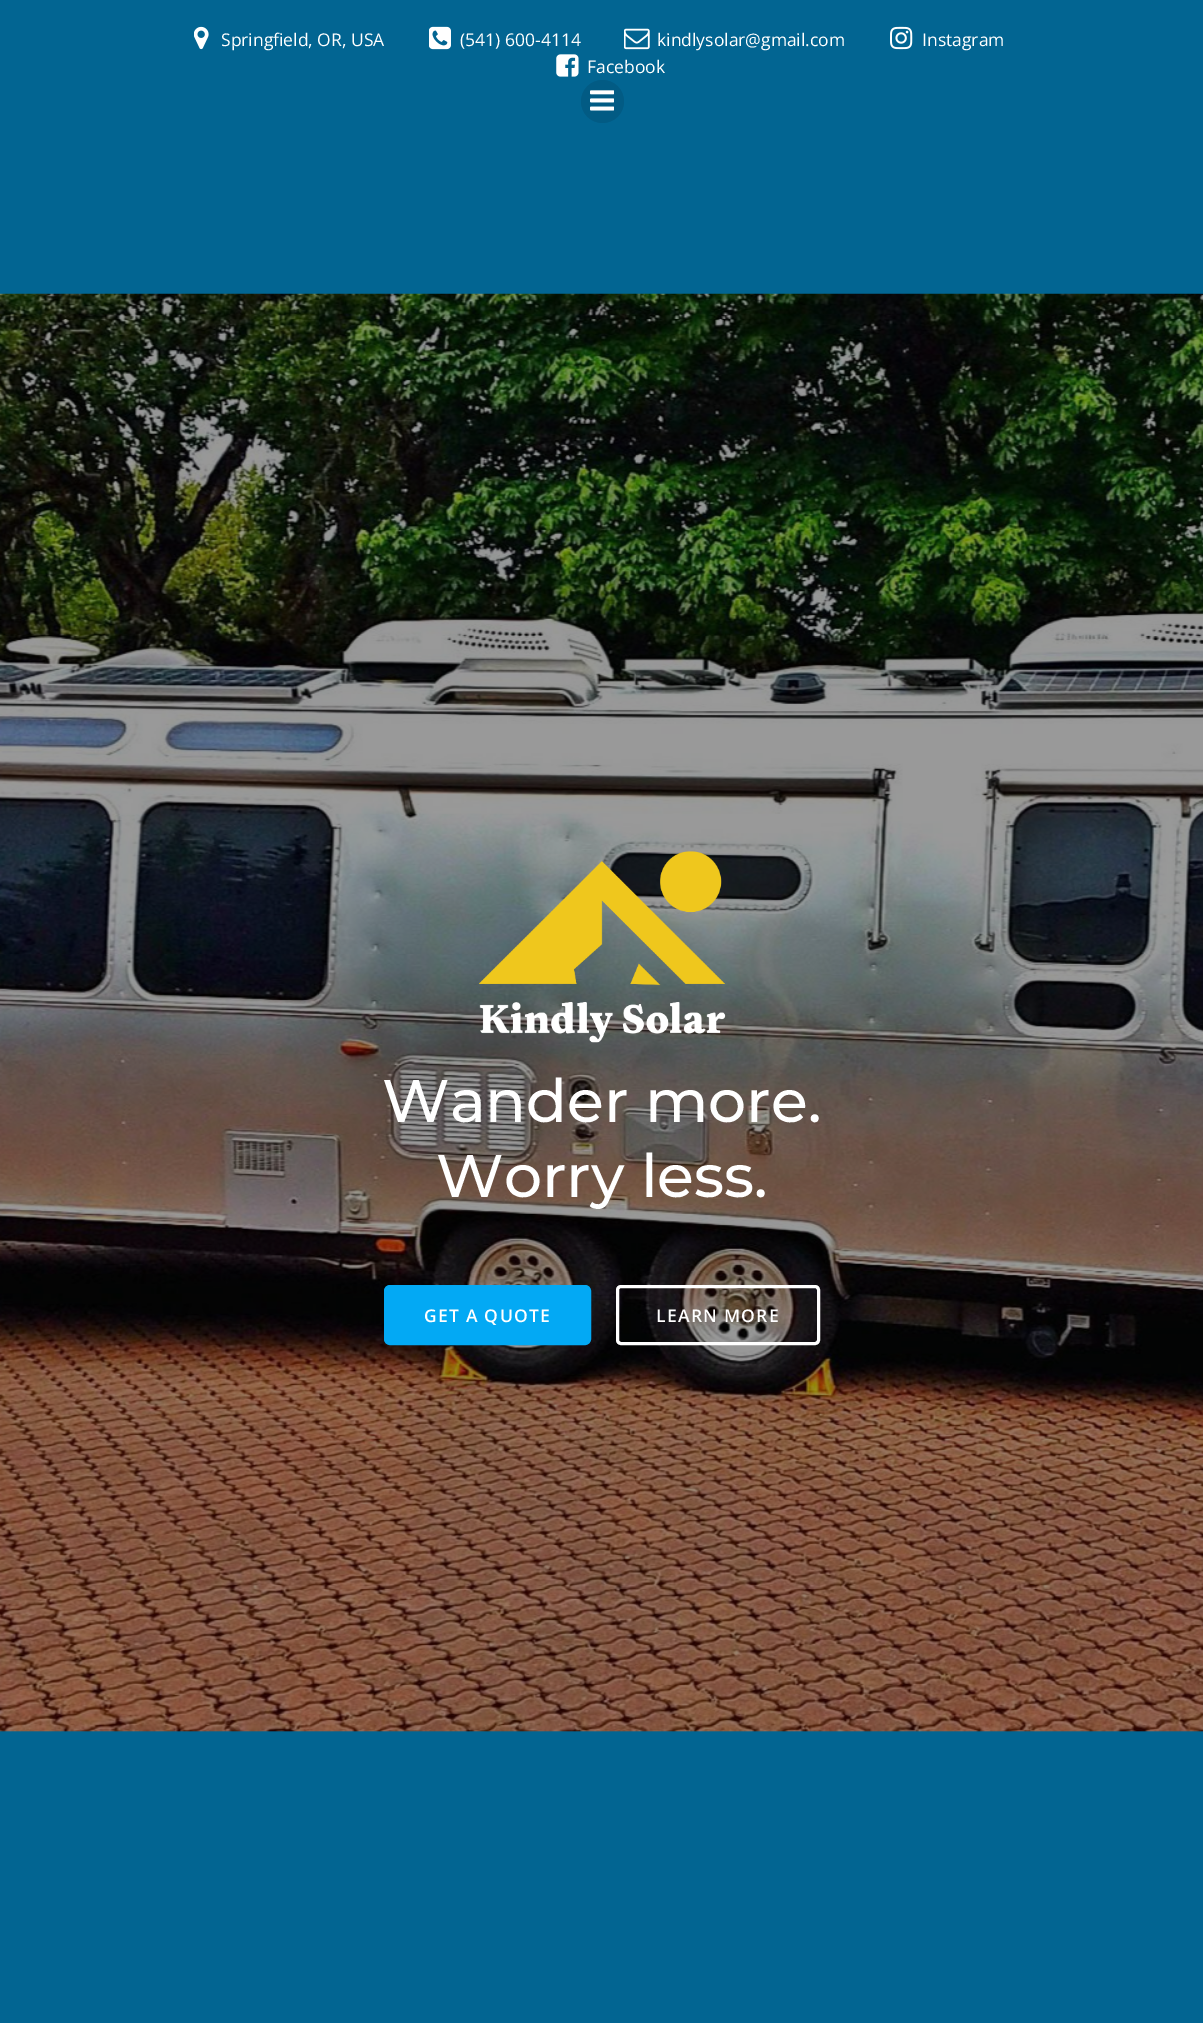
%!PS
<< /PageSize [1203 2023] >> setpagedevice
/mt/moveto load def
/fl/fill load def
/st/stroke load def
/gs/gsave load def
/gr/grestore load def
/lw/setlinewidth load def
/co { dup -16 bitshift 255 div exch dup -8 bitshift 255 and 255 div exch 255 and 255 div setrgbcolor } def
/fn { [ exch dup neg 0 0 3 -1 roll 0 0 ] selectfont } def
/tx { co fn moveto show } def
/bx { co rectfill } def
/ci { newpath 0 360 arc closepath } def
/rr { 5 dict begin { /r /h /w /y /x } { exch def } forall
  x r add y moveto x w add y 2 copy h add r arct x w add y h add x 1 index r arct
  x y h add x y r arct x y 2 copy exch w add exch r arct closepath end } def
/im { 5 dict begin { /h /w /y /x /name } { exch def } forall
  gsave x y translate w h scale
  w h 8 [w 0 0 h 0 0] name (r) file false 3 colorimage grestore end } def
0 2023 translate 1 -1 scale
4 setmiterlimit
0 0 1203 2023 16#026592 bx
(media/1.raw) 194 26 15 24 im
(media/2.raw) 429 26 22 24 im
(media/3.raw) 624 28 26 22 im
(media/4.raw) 890 26 23 24 im
(media/5.raw) 556 54 23 23 im
16#025B84 co
602.5 101.5 21.5 ci fl
(media/6.raw) 590 90 24 21 im
(media/7.raw) 0 293 1203 1439 im
(media/8.raw) 479 851 247 192 im
16#03A9F4 co
385.5 1286.5 204 57 4.5 rr gs fl gr
3 lw
st
16#FFFFFF co
617.5 1286.5 201 57 3.5 rr st
(Springfield, OR, USA) 221 46 /OpenSans-Regular 17.5 16#FFFFFF tx
(\(541\) 600-4114) 460 46 /OpenSans-Regular 17.5 16#FFFFFF tx
(kindlysolar@gmail.com) 657 46 /OpenSans-Regular 17.5 16#FFFFFF tx
(Instagram) 922 46 /OpenSans-Regular 17.5 16#FFFFFF tx
(Facebook) 587 73 /OpenSans-Regular 17.5 16#FFFFFF tx
(Wander more.) 382 1122 /Montserrat-Medium 60 16#FFFFFF tx
(Worry less.) 436 1197 /Montserrat-Medium 60 16#FFFFFF tx
/OpenSans-SemiBold 17.5 fn
424 1322 mt 1.25 0 (GET A QUOTE) ashow
656 1322 mt 1.25 0 (LEARN MORE) ashow
showpage
